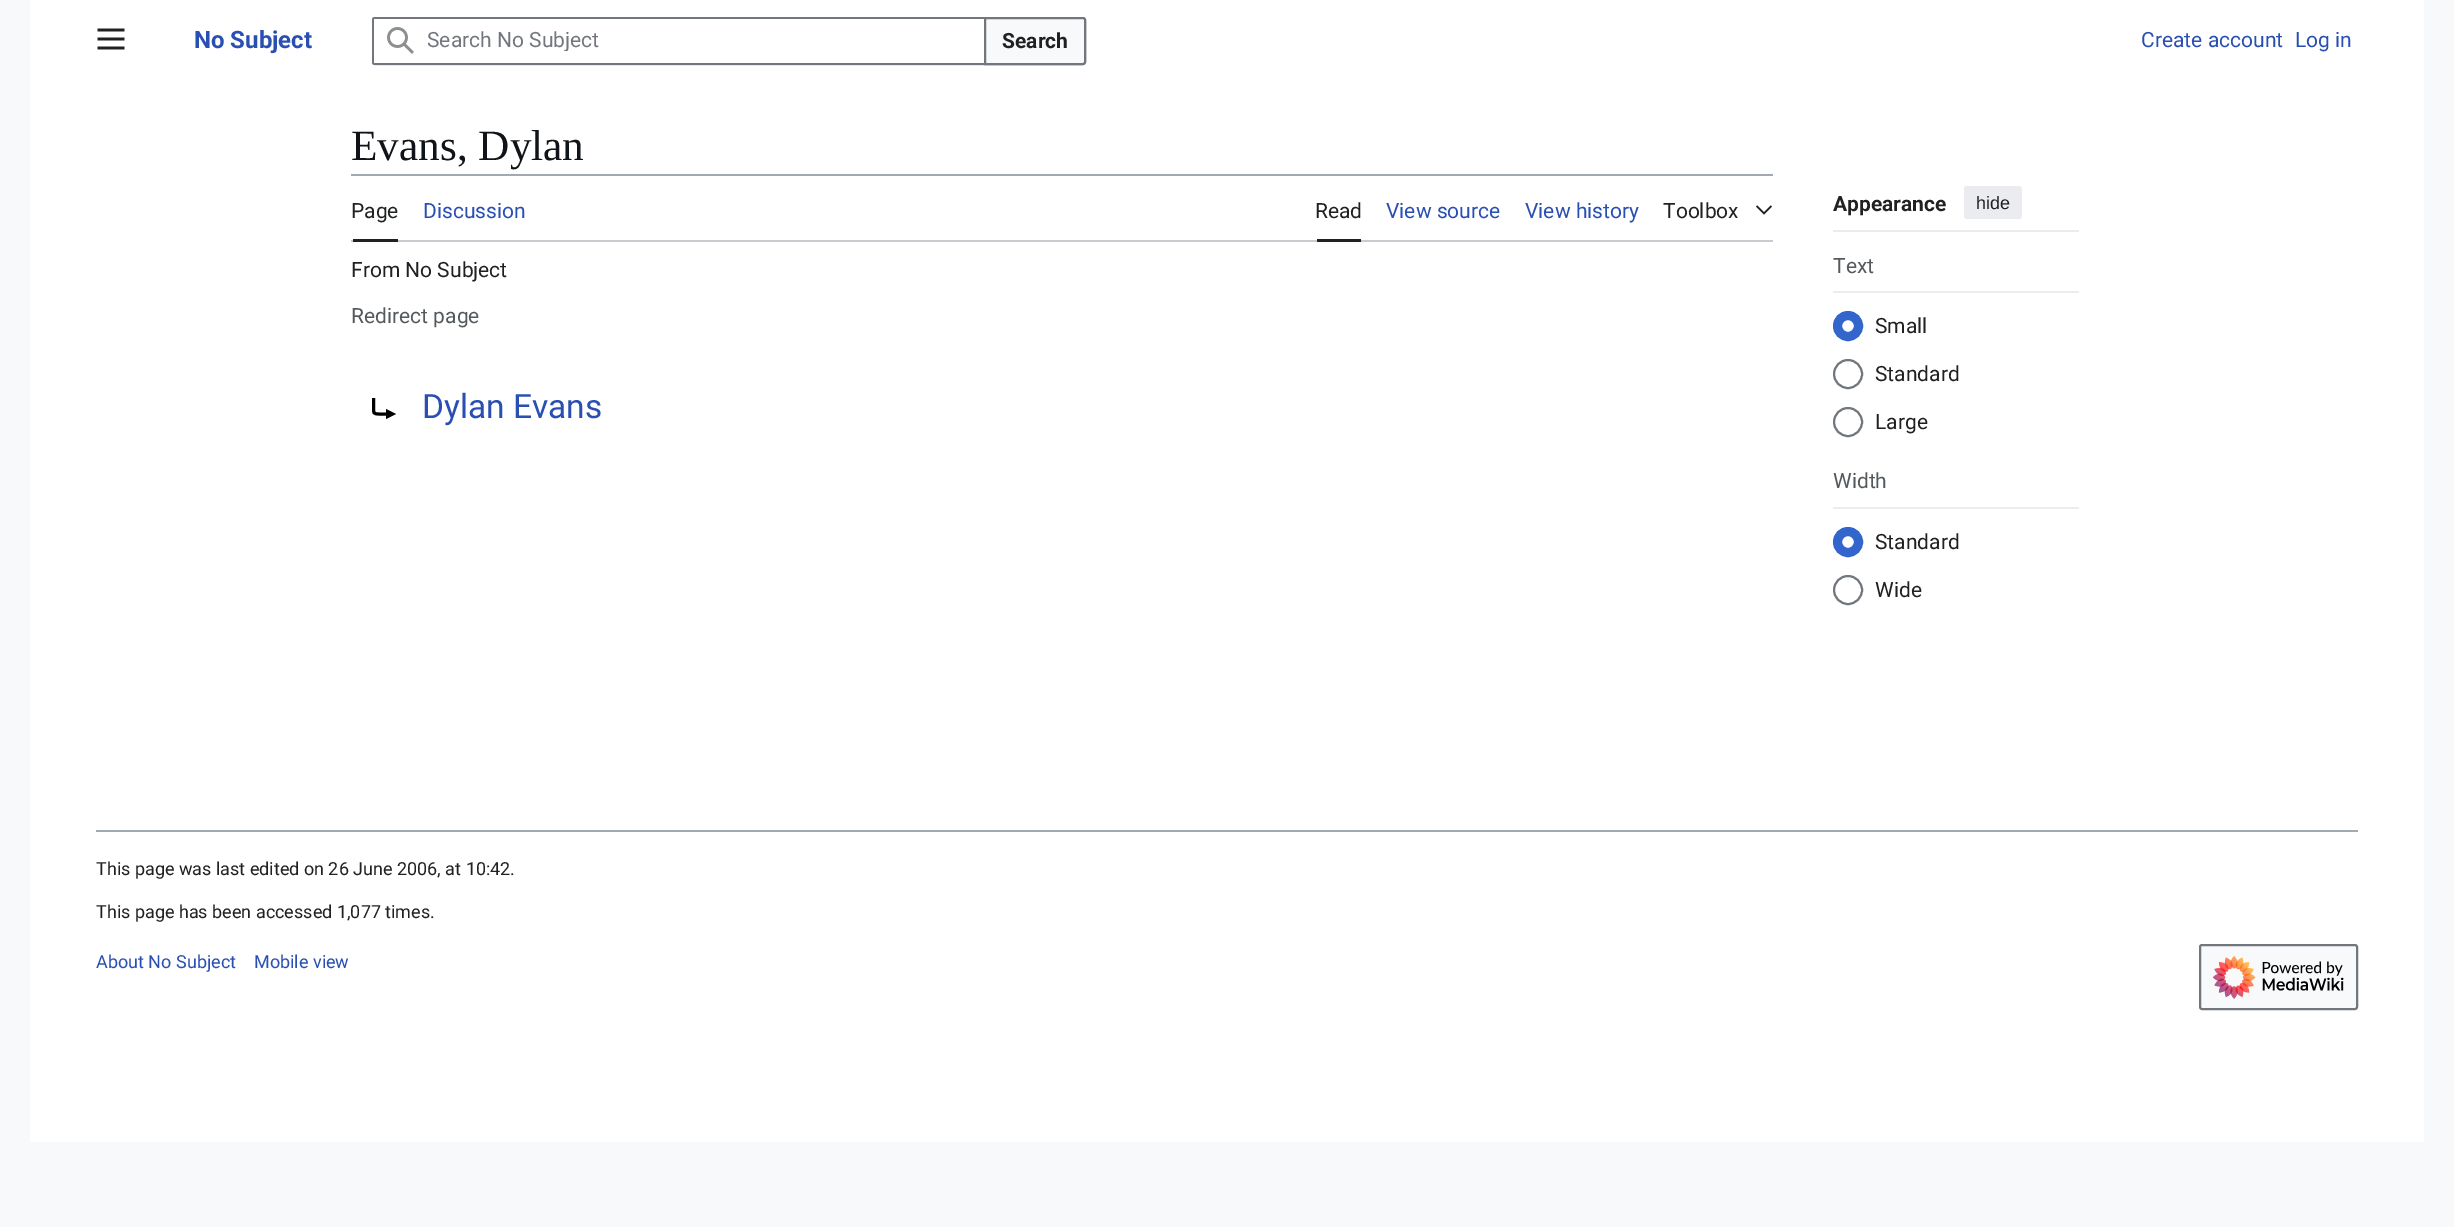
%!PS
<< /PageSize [2454 1227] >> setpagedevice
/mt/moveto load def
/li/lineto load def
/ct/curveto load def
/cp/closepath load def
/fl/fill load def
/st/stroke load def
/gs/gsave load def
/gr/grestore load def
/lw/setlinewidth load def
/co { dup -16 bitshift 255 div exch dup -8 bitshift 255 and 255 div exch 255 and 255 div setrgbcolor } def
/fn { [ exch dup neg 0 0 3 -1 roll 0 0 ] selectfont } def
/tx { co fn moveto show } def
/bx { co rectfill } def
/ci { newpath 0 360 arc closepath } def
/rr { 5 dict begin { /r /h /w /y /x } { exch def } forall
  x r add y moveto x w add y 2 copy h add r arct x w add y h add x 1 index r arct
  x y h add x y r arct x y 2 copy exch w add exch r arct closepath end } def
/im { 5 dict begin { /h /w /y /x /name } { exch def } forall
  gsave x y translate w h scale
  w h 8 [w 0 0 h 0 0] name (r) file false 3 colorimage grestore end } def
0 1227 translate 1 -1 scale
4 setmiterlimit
0 0 2454 1227 16#F8F9FA bx
30 0 2394 1142 16#FFFFFF bx
(media/1.raw) 97 28 28 22 im
16#A2A9B1 co
2 lw
373 18 712 46 2 rr st
16#F8F9FA co
985 18 mt 1083 18 li 1084 18 1085 19 1085 20 ct 1085 62 li 1085 63 1084 64 1083 64 ct 985 64 li cp gs fl gr
16#72777D co
st
16#FFFFFF co
375 17 mt 986 17 li 986 65 li 375 65 li 373.5 65 372 63.5 372 62 ct 372 20 li 372 18.5 373.5 17 375 17 ct cp fl
16#72777D co
375 17 mt 373 17 372 18 372 20 ct 372 62 li 372 64 373 65 375 65 ct 986 65 li 986 17 li cp 374 19 mt 374 63 li 984 63 li 984 19 li cp eofill
(media/2.raw) 387 27 27 27 im
351 174 1422 2 16#A2A9B1 bx
351 240 1422 2 16#C8CCD1 bx
353 239 45 3 16#202122 bx
1317 239 44 3 16#202122 bx
(media/3.raw) 1756 205 16 10 im
1833 230 246 2 16#EAECF0 bx
1964 186 58 33 3 rr fl
1833 291 246 2 16#EAECF0 bx
16#3366CC co
9 lw
1848 326 10.5 ci st
16#72777D co
2 lw
1848 374 14 ci st
1848 422 14 ci st
1833 507 246 2 16#EAECF0 bx
16#3366CC co
9 lw
1848 542 10.5 ci st
16#72777D co
2 lw
1848 590 14 ci st
16#000000 co
3 lw
373.5 398 mt 373.5 407 li 373.5 413 373 414 379.5 414 ct 390 414 li st
386 409 mt 386 419 li 396 414 li cp fl
96 830 2262 2 16#A2A9B1 bx
16#F8F9FA co
2200 945 157 64 2 rr gs fl gr
16#72777D co
2 lw
st
(media/4.raw) 2213 955 131 44 im
(No Subject) 194 48 /Roboto-Bold 24 16#2A4FB3 tx
gs
428 27 544 24 rectclip
(Search No Subject) 427 47 /Roboto-Regular 21 16#72777D tx
gr
(Search) 1002 48 /Roboto-Bold 21 16#202122 tx
(Create account) 2141 47 /Roboto-Regular 21 16#2A4FB3 tx
(Log in) 2295 47 /Roboto-Regular 21 16#2A4FB3 tx
(Evans, Dylan) 351 160 /LiberationSerif-Regular 43.25 16#101418 tx
(Page) 351 218 /Roboto-Regular 21 16#202122 tx
(Discussion) 423 218 /Roboto-Regular 21 16#2A4FB3 tx
(Read) 1315 218 /Roboto-Regular 21 16#202122 tx
(View source) 1386 218 /Roboto-Regular 21 16#2A4FB3 tx
(View history) 1525 218 /Roboto-Regular 21 16#2A4FB3 tx
(Toolbox) 1663 218 /Roboto-Regular 21 16#202122 tx
(Appearance) 1833 211 /Roboto-Bold 21 16#202122 tx
(hide) 1976 209 /LiberationSans-Regular 18 16#202122 tx
(Text) 1833 273 /Roboto-Regular 21 16#54595D tx
(Small) 1875 333 /Roboto-Regular 21 16#202122 tx
(Standard) 1875 381 /Roboto-Regular 21 16#202122 tx
(Large) 1875 429 /Roboto-Regular 21 16#202122 tx
(Width) 1833 488 /Roboto-Regular 21 16#54595D tx
(Standard) 1875 549 /Roboto-Regular 21 16#202122 tx
(Wide) 1875 597 /Roboto-Regular 21 16#202122 tx
(From No Subject) 351 277 /Roboto-Regular 21 16#202122 tx
(Redirect page) 351 323 /Roboto-Regular 21 16#54595D tx
(Dylan Evans) 422 418 /Roboto-Regular 33.5 16#2A4FB3 tx
(This page was last edited on 26 June 2006, at 10:42.) 96 875 /Roboto-Regular 18 16#202122 tx
(This page has been accessed 1,077 times.) 96 918 /Roboto-Regular 18 16#202122 tx
(About No Subject) 96 968 /Roboto-Regular 18 16#2A4FB3 tx
(Mobile view) 254 968 /Roboto-Regular 18 16#2A4FB3 tx
showpage
